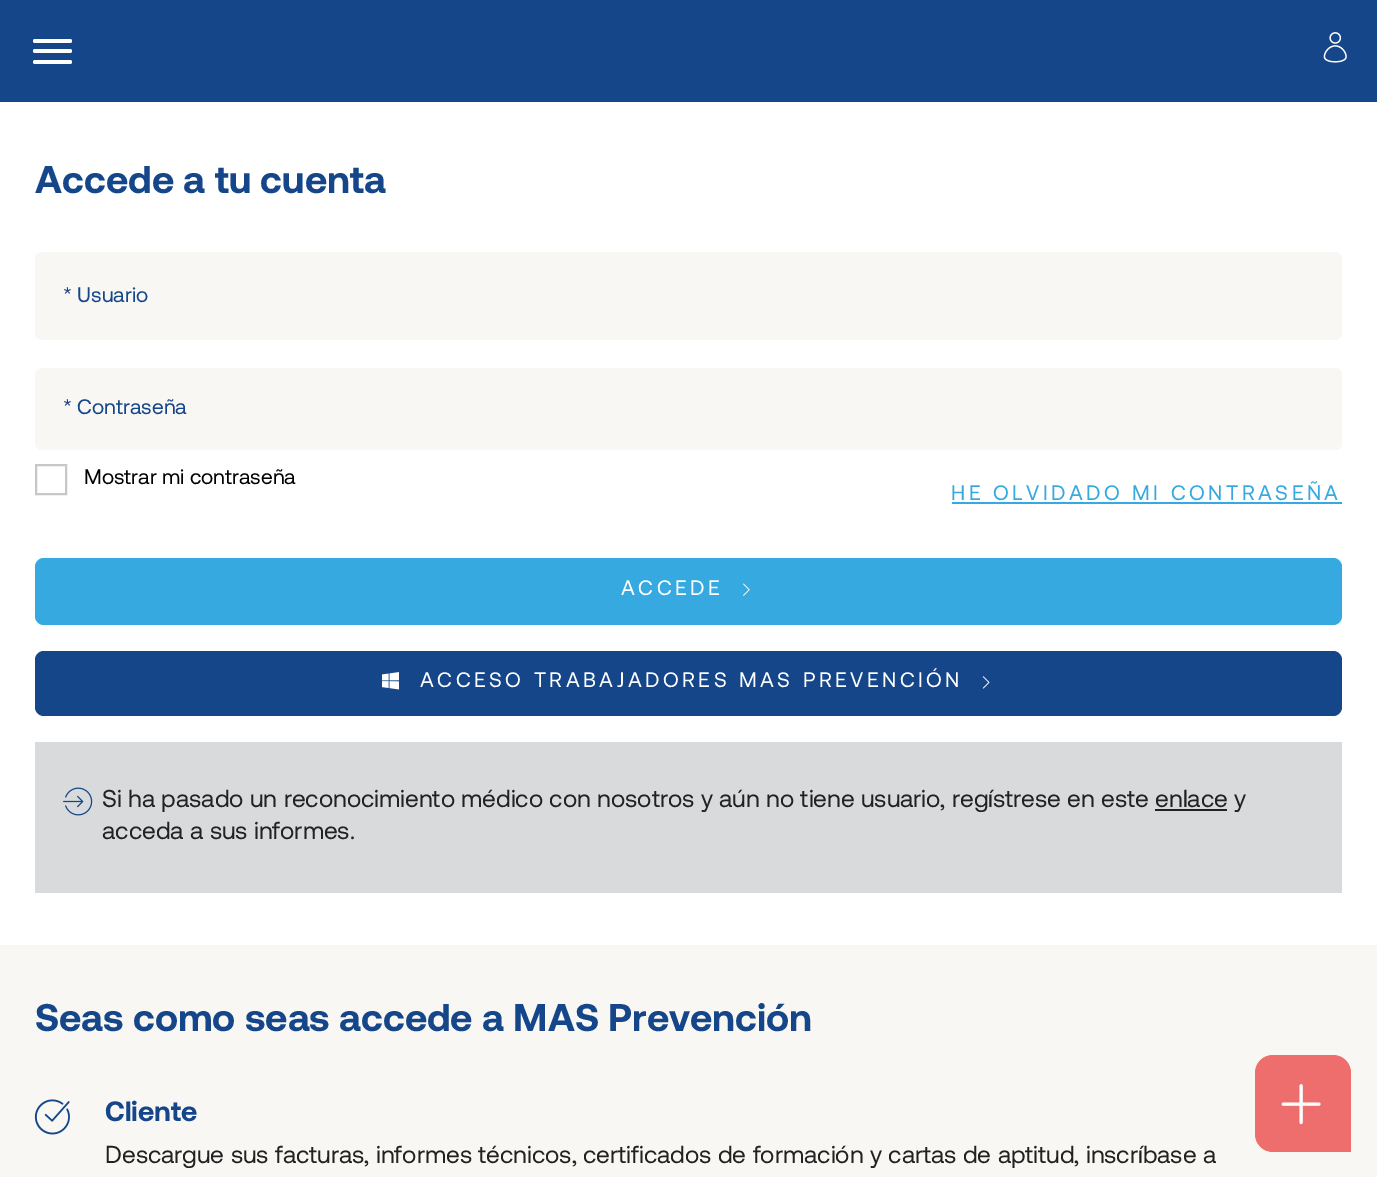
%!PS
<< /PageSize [1377 1177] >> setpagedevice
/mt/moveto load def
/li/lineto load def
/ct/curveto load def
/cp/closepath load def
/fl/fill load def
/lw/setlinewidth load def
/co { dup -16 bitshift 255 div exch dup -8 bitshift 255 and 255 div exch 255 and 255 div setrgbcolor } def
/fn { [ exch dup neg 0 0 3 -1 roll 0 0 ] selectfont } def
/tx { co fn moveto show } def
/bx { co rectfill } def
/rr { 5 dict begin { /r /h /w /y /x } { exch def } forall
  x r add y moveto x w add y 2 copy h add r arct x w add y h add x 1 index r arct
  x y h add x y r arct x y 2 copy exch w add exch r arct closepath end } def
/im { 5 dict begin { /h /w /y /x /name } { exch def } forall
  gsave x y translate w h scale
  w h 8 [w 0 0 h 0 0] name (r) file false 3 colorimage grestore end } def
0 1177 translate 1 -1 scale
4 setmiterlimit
0 0 1377 1177 16#FFFFFF bx
0 0 1377 102 16#144689 bx
16#FFFFFF co
33 39 39 4 2 rr fl
33 49 39 4 2 rr fl
33 60 39 4 2 rr fl
(media/1.raw) 1323 32 24 31 im
16#F8F7F4 co
35 252 1307 88 7 rr fl
35 368 1307 82 7 rr fl
16#C9C6C5 co
2 lw
36 465 30 29 rectstroke
952 502 390 2 16#36A9E1 bx
35 558 1307 67 9 rr fl
(media/2.raw) 743 583 7 13 im
16#144689 co
35 651 1307 65 9 rr fl
(media/3.raw) 382 672 17 18 im
(media/4.raw) 982 676 8 13 im
35 742 1307 151 16#D8DADB bx
(media/5.raw) 63 787 30 29 im
1155 809 72 2 16#222222 bx
0 945 1377 232 16#F9F7F4 bx
(media/6.raw) 34 1099 36 36 im
16#ED6E6C co
1273 1055 mt 1333 1055 li 1343 1055 1351 1063 1351 1073 ct 1351 1152 li 1273 1152 li 1263 1152 1255 1144 1255 1134 ct 1255 1073 li 1255 1063 1263 1055 1273 1055 ct cp fl
(media/7.raw) 1281 1084 40 41 im
(Accede a tu cuenta) 35 193 /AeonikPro-Bold 38.5 16#144689 tx
(* Usuario) 63 302 /AeonikPro-Regular 21 16#144689 tx
(* Contraseña) 63 414 /AeonikPro-Regular 21 16#144689 tx
(Mostrar mi contraseña) 84 484 /AeonikPro-Regular 21 16#000000 tx
16#36A9E1 co
951 500 mt 3.5 0 (HE OLVIDADO MI CONTRASEÑA) ashow
16#FFFFFF co
621 595 mt 3.5 0 (ACCEDE) ashow
420 687 mt 3.5 0 (ACCESO TRABAJADORES MAS PREVENCIÓN) ashow
(Si ha pasado un reconocimiento médico con nosotros y aún no tiene usuario, regístrese en este enlace y) 102 807 /AeonikPro-Regular 24.5 16#222222 tx
(acceda a sus informes.) 102 839 /AeonikPro-Regular 24.5 16#222222 tx
(Seas como seas accede a MAS Prevención) 35 1031 /AeonikPro-Bold 38.5 16#144689 tx
(Cliente) 105 1121 /AeonikPro-Bold 28 16#144689 tx
(Descargue sus facturas, informes técnicos, certificados de formación y cartas de aptitud, inscríbase a) 105 1163 /AeonikPro-Regular 24.5 16#222222 tx
showpage
